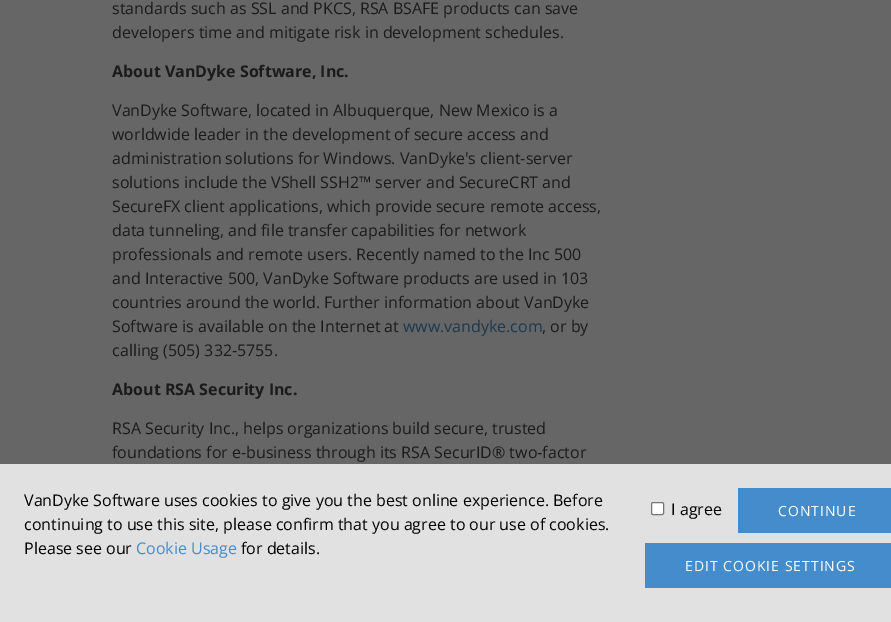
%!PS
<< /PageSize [891 622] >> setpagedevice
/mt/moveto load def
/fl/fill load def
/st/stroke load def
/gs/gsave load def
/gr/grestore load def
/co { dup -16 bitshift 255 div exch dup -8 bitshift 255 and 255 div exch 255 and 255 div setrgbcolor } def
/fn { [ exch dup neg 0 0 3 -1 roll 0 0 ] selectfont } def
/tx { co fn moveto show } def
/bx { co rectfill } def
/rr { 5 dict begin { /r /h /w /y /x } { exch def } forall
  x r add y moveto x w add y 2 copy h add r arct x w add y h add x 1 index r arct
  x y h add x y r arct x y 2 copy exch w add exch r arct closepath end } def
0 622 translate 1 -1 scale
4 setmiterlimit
0 0 891 622 16#666666 bx
0 464 891 158 16#E1E1E1 bx
16#FFFFFF co
651.5 502.5 12 12 1.5 rr gs fl gr
16#767676 co
st
738 488 153 45 16#448CCB bx
645 543 246 45 16#448CCB bx
(standards such as SSL and PKCS, RSA BSAFE products can save) 112 14 /OpenSans-Regular 16 16#1B1B1B tx
(developers time and mitigate risk in development schedules.) 112 38 /OpenSans-Regular 16 16#1B1B1B tx
(About VanDyke Software, Inc.) 112 77 /OpenSans-Bold 16 16#1B1B1B tx
(VanDyke Software, located in Albuquerque, New Mexico is a) 112 116 /OpenSans-Regular 16 16#1B1B1B tx
(worldwide leader in the development of secure access and) 112 140 /OpenSans-Regular 16 16#1B1B1B tx
(administration solutions for Windows. VanDyke's client-server) 112 164 /OpenSans-Regular 16 16#1B1B1B tx
(solutions include the VShell SSH2™ server and SecureCRT and) 112 188 /OpenSans-Regular 16 16#1B1B1B tx
(SecureFX client applications, which provide secure remote access,) 112 212 /OpenSans-Regular 16 16#1B1B1B tx
(data tunneling, and file transfer capabilities for network) 112 236 /OpenSans-Regular 16 16#1B1B1B tx
(professionals and remote users. Recently named to the Inc 500) 112 260 /OpenSans-Regular 16 16#1B1B1B tx
(and Interactive 500, VanDyke Software products are used in 103) 112 284 /OpenSans-Regular 16 16#1B1B1B tx
(countries around the world. Further information about VanDyke) 112 308 /OpenSans-Regular 16 16#1B1B1B tx
(Software is available on the Internet at) 112 332 /OpenSans-Regular 16 16#1B1B1B tx
(www.vandyke.com) 403 332 /OpenSans-Regular 16 16#1B3851 tx
(, or by) 542 332 /OpenSans-Regular 16 16#1B1B1B tx
(calling \(505\) 332-5755.) 112 356 /OpenSans-Regular 16 16#1B1B1B tx
(About RSA Security Inc.) 112 395 /OpenSans-Bold 16 16#1B1B1B tx
(RSA Security Inc., helps organizations build secure, trusted) 112 434 /OpenSans-Regular 16 16#1B1B1B tx
(foundations for e-business through its RSA SecurID® two-factor) 112 458 /OpenSans-Regular 16 16#1B1B1B tx
(VanDyke Software uses cookies to give you the best online experience. Before) 24 506 /OpenSans-Regular 16 16#000000 tx
(continuing to use this site, please confirm that you agree to our use of cookies.) 24 530 /OpenSans-Regular 16 16#000000 tx
(Please see our) 24 554 /OpenSans-Regular 16 16#000000 tx
(Cookie Usage) 136 554 /OpenSans-Regular 16 16#448CCB tx
(for details.) 241 554 /OpenSans-Regular 16 16#000000 tx
(I agree) 671 515 /OpenSans-Regular 16 16#000000 tx
/OpenSans-Regular 14 fn
16#FFFFFF co
778 516 mt 1 0 (CONTINUE) ashow
685 571 mt 1 0 (EDIT COOKIE SETTINGS) ashow
showpage
